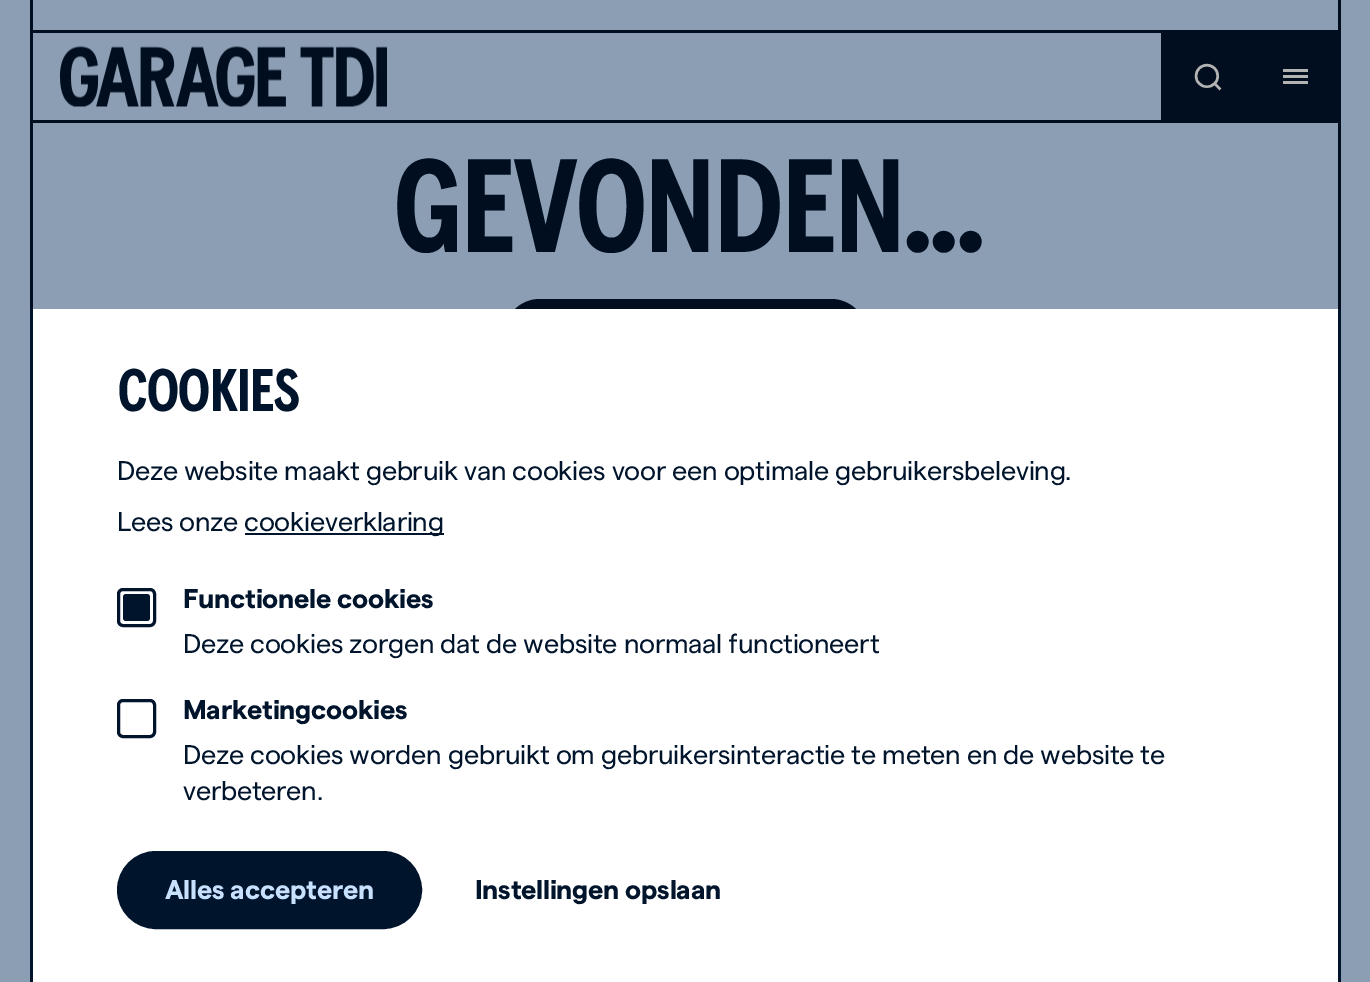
%!PS
<< /PageSize [1370 982] >> setpagedevice
/mt/moveto load def
/fl/fill load def
/st/stroke load def
/gs/gsave load def
/gr/grestore load def
/lw/setlinewidth load def
/co { dup -16 bitshift 255 div exch dup -8 bitshift 255 and 255 div exch 255 and 255 div setrgbcolor } def
/fn { [ exch dup neg 0 0 3 -1 roll 0 0 ] selectfont } def
/bx { co rectfill } def
/rr { 5 dict begin { /r /h /w /y /x } { exch def } forall
  x r add y moveto x w add y 2 copy h add r arct x w add y h add x 1 index r arct
  x y h add x y r arct x y 2 copy exch w add exch r arct closepath end } def
/im { 5 dict begin { /h /w /y /x /name } { exch def } forall
  gsave x y translate w h scale
  w h 8 [w 0 0 h 0 0] name (r) file false 3 colorimage grestore end } def
0 982 translate 1 -1 scale
4 setmiterlimit
0 0 1370 982 16#8B9EB3 bx
1338 0 3 309 16#000E1F bx
30 0 3 309 16#000E1F bx
33 30 1305 3 16#000E1F bx
33 120 1305 3 16#000E1F bx
(media/1.raw) 60 46 327 61 im
1161 33 177 87 16#000E1F bx
(media/2.raw) 1194 63 28 28 im
1283 69 25 3 16#B3B3B3 bx
1283 75 25 3 16#B3B3B3 bx
1283 81 25 3 16#B3B3B3 bx
16#000E1F co
504 299 363 72 36 rr fl
33 309 1305 673 16#FFFFFF bx
1338 309 3 673 16#00142C bx
30 309 3 673 16#00142C bx
245 533 199 2 16#00142C bx
3 lw
118.5 589.5 36 36 4.5 rr st
123 594 27 27 3 rr fl
118.5 700.5 36 36 4.5 rr st
118.5 852.5 302 75 37.5 rr gs fl gr
st
/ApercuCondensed-Bold 132.5 fn
16#000E1F co
392 252 mt -5.25 0 (GEVONDEN...) ashow
/ApercuCondensed-Bold 60 fn
16#00142C co
117 411 mt -2.5 0 (COOKIES) ashow
/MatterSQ-Regular 27 fn
117 480 mt -.27 0 (Deze website maakt gebruik van cookies voor een optimale gebruikersbeleving.) ashow
117 531 mt -.27 0 (Lees onze) ashow
244 531 mt -.27 0 (cookieverklaring) ashow
/MatterSQ-Bold 27 fn
183 608 mt -.27 0 (Functionele cookies) ashow
/MatterSQ-Regular 27 fn
183 653 mt -.27 0 (Deze cookies zorgen dat de website normaal functioneert) ashow
/MatterSQ-Bold 27 fn
183 719 mt -.27 0 (Marketingcookies) ashow
/MatterSQ-Regular 27 fn
183 764 mt -.27 0 (Deze cookies worden gebruikt om gebruikersinteractie te meten en de website te) ashow
183 800 mt -.27 0 (verbeteren.) ashow
/MatterSQ-Bold 27 fn
16#C7E1FF co
165 899 mt -.27 0 (Alles accepteren) ashow
16#00142C co
475 899 mt -.27 0 (Instellingen opslaan) ashow
showpage
